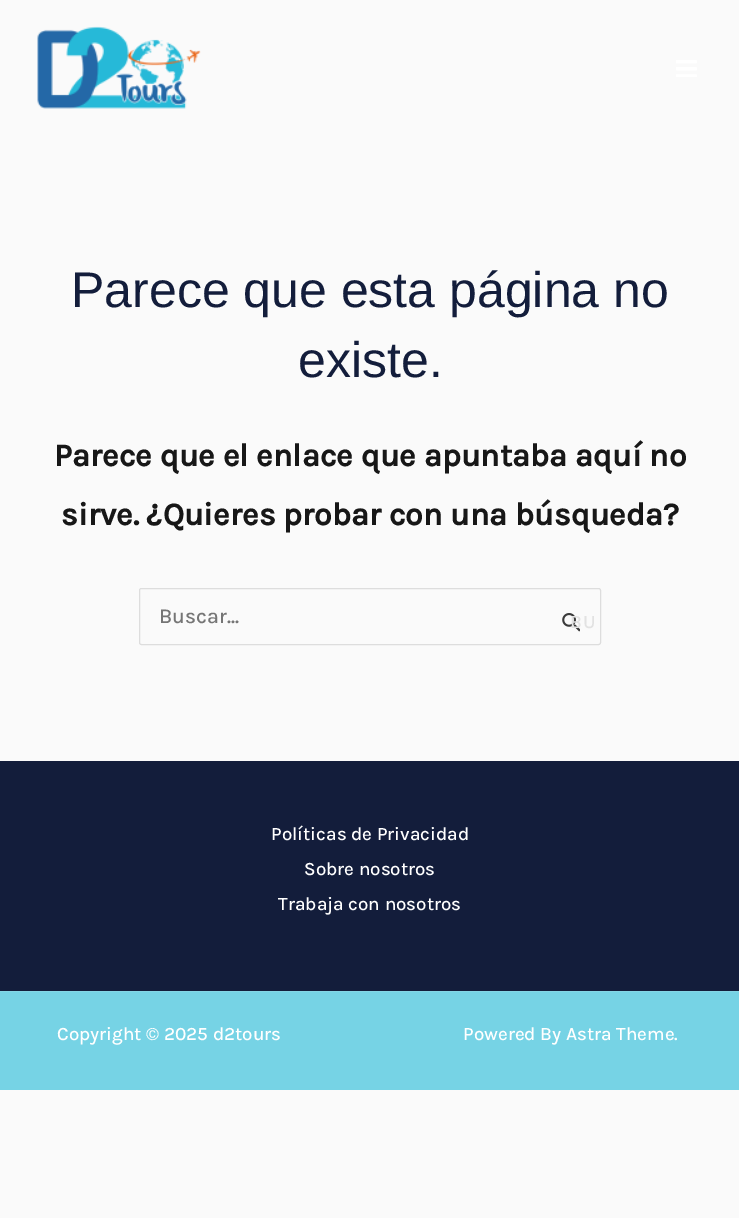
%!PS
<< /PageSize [739 1218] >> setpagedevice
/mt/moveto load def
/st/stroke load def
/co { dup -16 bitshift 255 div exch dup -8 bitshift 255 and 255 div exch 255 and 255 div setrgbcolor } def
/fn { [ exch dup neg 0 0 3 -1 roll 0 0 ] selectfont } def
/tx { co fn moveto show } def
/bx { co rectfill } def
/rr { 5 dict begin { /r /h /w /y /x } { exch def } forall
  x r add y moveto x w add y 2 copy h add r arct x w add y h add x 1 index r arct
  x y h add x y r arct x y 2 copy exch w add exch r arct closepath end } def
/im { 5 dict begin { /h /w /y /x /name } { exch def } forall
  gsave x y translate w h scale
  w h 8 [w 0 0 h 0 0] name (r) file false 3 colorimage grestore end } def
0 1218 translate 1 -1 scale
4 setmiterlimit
0 0 739 1218 16#FAFAFA bx
(media/1.raw) 37 26 164 83 im
(media/2.raw) 676 60 21 17 im
16#DDDDDD co
139.5 588.5 461 56 2 rr st
(media/3.raw) 562 613 18 19 im
0 761 739 230 16#131D3B bx
0 992 739 98 16#76D3E5 bx
0 991 739 1 16#84D6E6 bx
(Parece que esta página no) 71 307 /LiberationSans-Regular 50 16#131D3B tx
(existe.) 298 377 /LiberationSans-Regular 50 16#131D3B tx
(Parece que el enlace que apuntaba aquí no) 54 466 /Karla-Bold 31.9 16#171717 tx
(sirve. ¿Quieres probar con una búsqueda?) 61 525 /Karla-Bold 31.9 16#171717 tx
(Buscar...) 159 623 /Karla-Medium 21 16#757575 tx
/Karla-Medium 18.75 fn
16#E2E2E2 co
570 628 mt 1 0 (BU) ashow
(Políticas de Privacidad) 271 840 /Karla-Medium 18.75 16#FFFFFF tx
(Sobre nosotros) 304 875 /Karla-Medium 18.75 16#FFFFFF tx
(Trabaja con nosotros) 278 910 /Karla-Medium 18.75 16#FFFFFF tx
(Copyright © 2025 d2tours) 57 1040 /Karla-Medium 18.75 16#FFFFFF tx
(Powered By Astra Theme.) 463 1040 /Karla-Medium 18.75 16#FFFFFF tx
showpage
